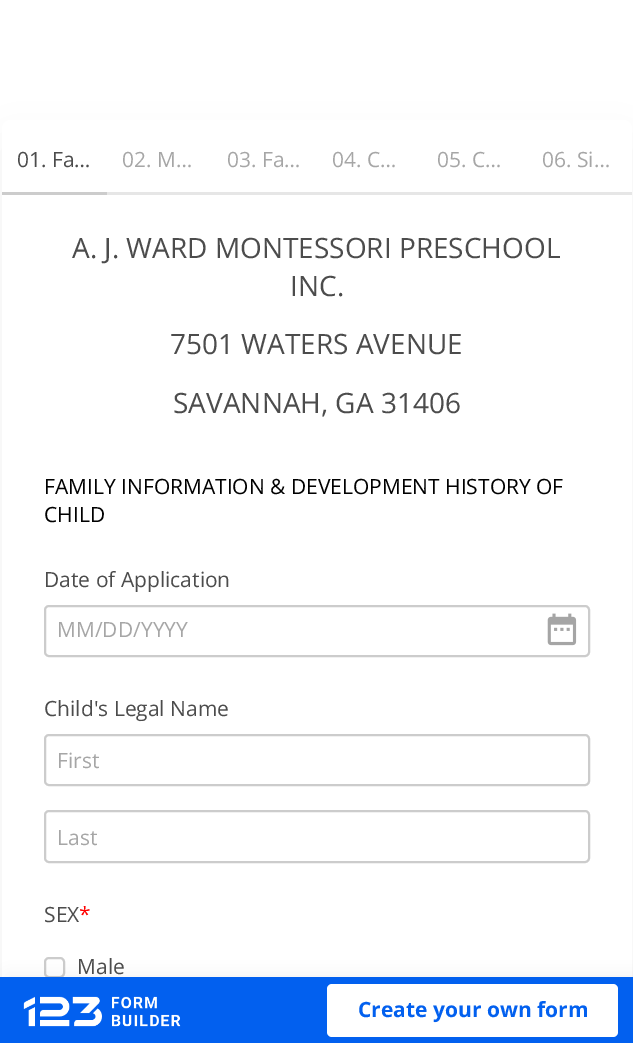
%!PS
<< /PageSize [633 1043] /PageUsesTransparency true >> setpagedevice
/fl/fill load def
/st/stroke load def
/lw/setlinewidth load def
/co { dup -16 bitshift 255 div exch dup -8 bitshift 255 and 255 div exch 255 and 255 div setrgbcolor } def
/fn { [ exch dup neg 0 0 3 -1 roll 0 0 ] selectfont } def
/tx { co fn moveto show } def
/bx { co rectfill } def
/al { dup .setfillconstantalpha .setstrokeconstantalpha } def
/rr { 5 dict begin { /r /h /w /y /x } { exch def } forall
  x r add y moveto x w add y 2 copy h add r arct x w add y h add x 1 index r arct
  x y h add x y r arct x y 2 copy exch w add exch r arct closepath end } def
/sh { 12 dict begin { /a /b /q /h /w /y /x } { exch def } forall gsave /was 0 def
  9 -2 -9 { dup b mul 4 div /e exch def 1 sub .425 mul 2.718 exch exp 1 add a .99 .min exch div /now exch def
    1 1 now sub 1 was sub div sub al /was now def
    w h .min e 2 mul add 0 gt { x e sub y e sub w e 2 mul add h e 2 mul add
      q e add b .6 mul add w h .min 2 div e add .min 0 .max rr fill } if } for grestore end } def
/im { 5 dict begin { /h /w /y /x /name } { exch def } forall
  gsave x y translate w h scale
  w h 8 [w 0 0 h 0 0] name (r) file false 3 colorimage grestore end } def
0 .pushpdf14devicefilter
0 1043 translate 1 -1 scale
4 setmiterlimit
0 0 633 1043 16#FFFFFF bx
16#000000 co
2 143 630 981 9 24 .05 sh
16#FFFFFF co
2 120 630 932 9 rr fl
2 192 105 3 16#CCCCCC bx
107 192 525 3 16#E6E6E6 bx
16#CCCCCC co
2 lw
45 606 544 50 4 rr st
(media/1.raw) 547 613 30 33 im
45 735 544 50 4 rr st
45 811 544 51 4 rr st
45 958 19 19 4 rr st
16#4C4C4C co
8 977 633 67 0 7.5 .08 sh
0 977 633 66 16#0260EF bx
(media/2.raw) 23 996 158 31 im
16#FFFFFF co
327 984 291 53 5 rr fl
(01. Fa…) 17 167 /OpenSans-Regular 21 16#4C4C4C tx
(02. M…) 122 167 /OpenSans-Regular 21 16#A6A6A6 tx
(03. Fa…) 227 167 /OpenSans-Regular 21 16#A6A6A6 tx
(04. C…) 332 167 /OpenSans-Regular 21 16#A6A6A6 tx
(05. C…) 437 167 /OpenSans-Regular 21 16#A6A6A6 tx
(06. Si…) 542 167 /OpenSans-Regular 21 16#A6A6A6 tx
(A. J. WARD MONTESSORI PRESCHOOL) 72 258 /OpenSans-Regular 28 16#4C4C4C tx
(INC.) 290 296 /OpenSans-Regular 28 16#4C4C4C tx
(7501 WATERS AVENUE) 170 354 /OpenSans-Regular 28 16#4C4C4C tx
(SAVANNAH, GA 31406) 173 413 /OpenSans-Regular 28 16#4C4C4C tx
(FAMILY INFORMATION & DEVELOPMENT HISTORY OF) 44 494 /OpenSans-Regular 21 16#000000 tx
(CHILD) 44 522 /OpenSans-Regular 21 16#000000 tx
(Date of Application) 44 587 /OpenSans-Regular 21 16#4C4C4C tx
(MM/DD/) 57 637 /OpenSans-Regular 21 16#A6A6A6 tx
(YYYY) 141 637 /OpenSans-Regular 21 16#A6A6A6 tx
(Child's Legal Name) 44 716 /OpenSans-Regular 21 16#4C4C4C tx
(First) 57 768 /OpenSans-Regular 21 16#A6A6A6 tx
(Last) 57 845 /OpenSans-Regular 21 16#A6A6A6 tx
(SEX) 44 922 /OpenSans-Regular 21 16#4C4C4C tx
(*) 79 922 /OpenSans-Regular 21 16#FF0000 tx
(Male) 77 974 /OpenSans-Regular 21 16#4C4C4C tx
(Create your own form) 358 1017 /OpenSans-Bold 21 16#0260EF tx
.poppdf14devicefilter showpage
